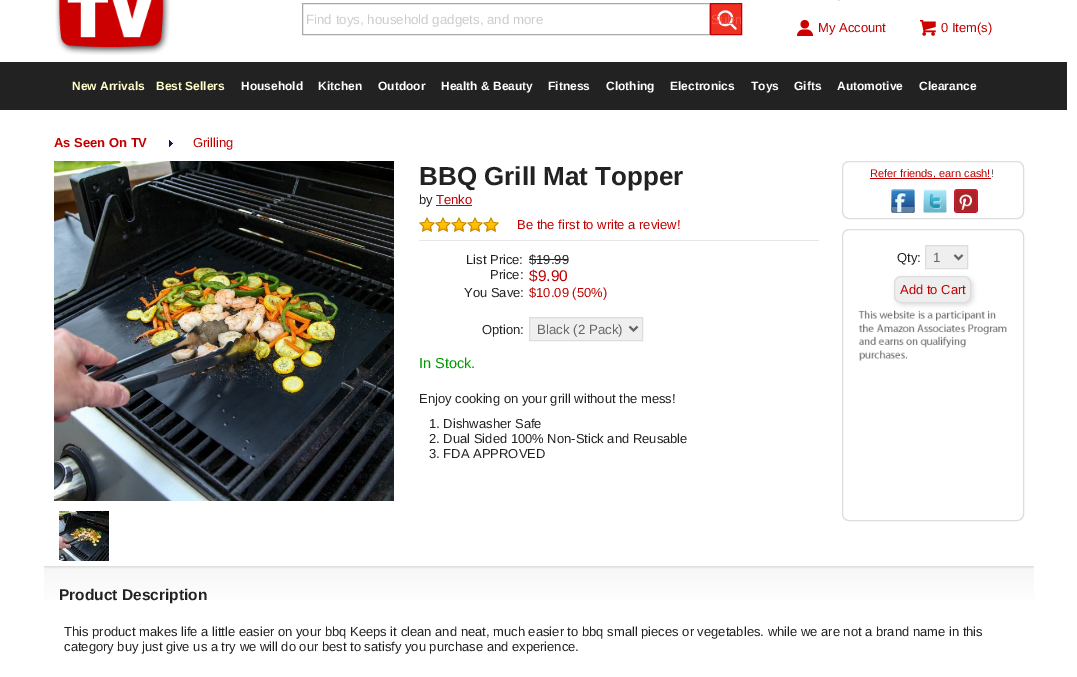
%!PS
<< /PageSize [1077 677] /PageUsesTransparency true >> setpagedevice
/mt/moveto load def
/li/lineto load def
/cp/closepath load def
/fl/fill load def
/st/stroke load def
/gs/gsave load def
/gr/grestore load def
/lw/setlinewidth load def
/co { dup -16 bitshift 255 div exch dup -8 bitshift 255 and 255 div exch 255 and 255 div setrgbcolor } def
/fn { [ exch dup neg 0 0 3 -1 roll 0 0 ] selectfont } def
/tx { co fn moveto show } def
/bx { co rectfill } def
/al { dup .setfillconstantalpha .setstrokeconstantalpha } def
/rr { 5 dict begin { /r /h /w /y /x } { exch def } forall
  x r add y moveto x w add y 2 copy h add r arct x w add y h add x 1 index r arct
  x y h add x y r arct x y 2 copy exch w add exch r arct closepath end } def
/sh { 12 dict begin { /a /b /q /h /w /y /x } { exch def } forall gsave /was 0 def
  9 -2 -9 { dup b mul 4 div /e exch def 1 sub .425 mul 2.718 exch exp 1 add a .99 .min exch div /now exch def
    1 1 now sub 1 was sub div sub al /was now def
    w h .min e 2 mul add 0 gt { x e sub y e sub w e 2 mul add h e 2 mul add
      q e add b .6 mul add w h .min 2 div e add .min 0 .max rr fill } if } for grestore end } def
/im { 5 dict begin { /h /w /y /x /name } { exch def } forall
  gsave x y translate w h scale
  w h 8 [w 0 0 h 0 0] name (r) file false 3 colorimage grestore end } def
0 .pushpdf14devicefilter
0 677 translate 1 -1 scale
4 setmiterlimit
0 0 1077 677 16#FFFFFF bx
(media/1.raw) 55 0 115 55 im
16#AAAAAA co
302.5 3.5 407 31 rectstroke
(media/2.raw) 711 4 30 30 im
16#C00000 co
710.5 3.5 31 31 rectstroke
(media/3.raw) 838 0 3 1 im
(media/4.raw) 797 20 16 16 im
(media/5.raw) 920 20 16 16 im
0 62 1067 48 16#222222 bx
(media/6.raw) 169 140 4 7 im
(media/7.raw) 54 161 340 340 im
(media/8.raw) 59 511 50 50 im
436 205 36 1 16#C00000 bx
(media/9.raw) 419 217 80 15 im
419 240 400 1 16#E6E6E6 bx
529 259 39 1 16#222222 bx
16#EFEFEF co
529.5 317.5 mt 642.5 317.5 li 642.5 340.5 li 529.5 340.5 li cp gs fl gr
16#DDDDDD co
st
16#666666 co
2 lw
629.5 326.5 mt 633.5 330.5 li 637.5 326.5 li st
16#DDDDDD co
1 lw
842.5 161.5 181 57 6.5 rr st
870 178 121 1 16#C00000 bx
(media/10.raw) 891 189 24 24 im
(media/11.raw) 923 189 24 24 im
(media/12.raw) 954 189 24 24 im
16#DDDDDD co
842.5 229.5 181 291 6.5 rr st
16#EFEFEF co
925.5 245.5 mt 967.5 245.5 li 967.5 268.5 li 925.5 268.5 li cp gs fl gr
16#DDDDDD co
st
16#666666 co
2 lw
954.5 255 mt 958.5 259 li 962.5 255 li st
16#DDDDDD co
896 278 77 27 7 2.5 1 sh
16#EEEEEE co
894.5 276.5 76 26 6.5 rr gs fl gr
16#DDDDDD co
1 lw
st
(media/13.raw) 858 310 149 51 im
gs 44 566 mt 1034 566 li 1034 600 li 44 600 li cp clip newpath
<< /ShadingType 2 /ColorSpace /DeviceRGB /Coords [539 566 539 614] /Extend [true true] /Function << /FunctionType 3 /Domain [0 1] /Functions [<< /FunctionType 2 /Domain [0 1] /C0 [.859 .859 .859] /C1 [.969 .969 .969] /N 1 >> << /FunctionType 2 /Domain [0 1] /C0 [.969 .969 .969] /C1 [1 1 1] /N 1 >>] /Bounds [.06] /Encode [0 1 0 1] >> >> shfill gr
(Find toys, household gadgets, and more) 306 24 /LiberationSans-Regular 13.3 16#CCCCCC tx
gs
711 4 30 30 rectclip
(Subm) 711 24 /LiberationSans-Regular 13.3 16#F2564B tx
gr
(My Account) 818 32 /LiberationSans-Regular 13 16#C00000 tx
(0 Item\(s\)) 941 32 /LiberationSans-Regular 13 16#C00000 tx
(New Arrivals) 72 90 /LiberationSans-Bold 12 16#FFFFCC tx
(Best Sellers) 156 90 /LiberationSans-Bold 12 16#FFFFCC tx
(Household) 241 90 /LiberationSans-Bold 12 16#FFFFFF tx
(Kitchen) 318 90 /LiberationSans-Bold 12 16#FFFFFF tx
(Outdoor) 378 90 /LiberationSans-Bold 12 16#FFFFFF tx
(Health & Beauty) 441 90 /LiberationSans-Bold 12 16#FFFFFF tx
(Fitness) 548 90 /LiberationSans-Bold 12 16#FFFFFF tx
(Clothing) 606 90 /LiberationSans-Bold 12 16#FFFFFF tx
(Electronics) 670 90 /LiberationSans-Bold 12 16#FFFFFF tx
(Toys) 751 90 /LiberationSans-Bold 12 16#FFFFFF tx
(Gifts) 794 90 /LiberationSans-Bold 12 16#FFFFFF tx
(Automotive) 837 90 /LiberationSans-Bold 12 16#FFFFFF tx
(Clearance) 919 90 /LiberationSans-Bold 12 16#FFFFFF tx
(As Seen On TV) 54 147 /LiberationSans-Bold 13 16#C00000 tx
(Grilling) 193 147 /LiberationSans-Regular 13 16#C00000 tx
(BBQ Grill Mat Topper) 419 185 /LiberationSans-Bold 26 16#222222 tx
(by) 419 204 /LiberationSans-Regular 13 16#222222 tx
(Tenko) 436 204 /LiberationSans-Regular 13 16#C00000 tx
(Be the first to write a review!) 517 229 /LiberationSans-Regular 13 16#C00000 tx
(List Price:) 466 264 /LiberationSans-Regular 13 16#222222 tx
($19.99) 529 264 /LiberationSans-Regular 13 16#222222 tx
(Price:) 490 279 /LiberationSans-Regular 13 16#222222 tx
($9.90) 529 281 /LiberationSans-Regular 15.5 16#C00000 tx
(You Save:) 464 297 /LiberationSans-Regular 13 16#222222 tx
($10.09 \(50%\)) 529 297 /LiberationSans-Regular 13 16#C00000 tx
(Option:) 482 334 /LiberationSans-Regular 13 16#222222 tx
(Black \(2 Pack\)) 537 334 /LiberationSans-Regular 13.3 16#666666 tx
(In Stock.) 419 368 /LiberationSans-Regular 14.5 16#009900 tx
(Enjoy cooking on your grill without the mess!) 419 403 /LiberationSans-Regular 13 16#222222 tx
(1. Dishwasher Safe) 429 428 /LiberationSans-Regular 13 16#222222 tx
(2. Dual Sided 100% Non-Stick and Reusable) 429 443 /LiberationSans-Regular 13 16#222222 tx
(3. FDA APPROVED) 429 458 /LiberationSans-Regular 13 16#222222 tx
(Refer friends, earn cash!) 870 177 /LiberationSans-Regular 11 16#C00000 tx
(!) 991 177 /LiberationSans-Regular 11 16#666666 tx
(Qty:) 897 262 /LiberationSans-Regular 13 16#222222 tx
(1) 933 262 /LiberationSans-Regular 13.3 16#666666 tx
(Add to Cart) 900 294 /LiberationSans-Regular 13 16#C00000 tx
(Product Description) 59 600 /LiberationSans-Bold 15.5 16#222222 tx
(This product makes life a little easier on your bbq Keeps it clean and neat, much easier to bbq small pieces or vegetables. while we are not a brand name in this) 64 636 /LiberationSans-Regular 13 16#222222 tx
(category buy just give us a try we will do our best to satisfy you purchase and experience.) 64 651 /LiberationSans-Regular 13 16#222222 tx
.poppdf14devicefilter showpage
